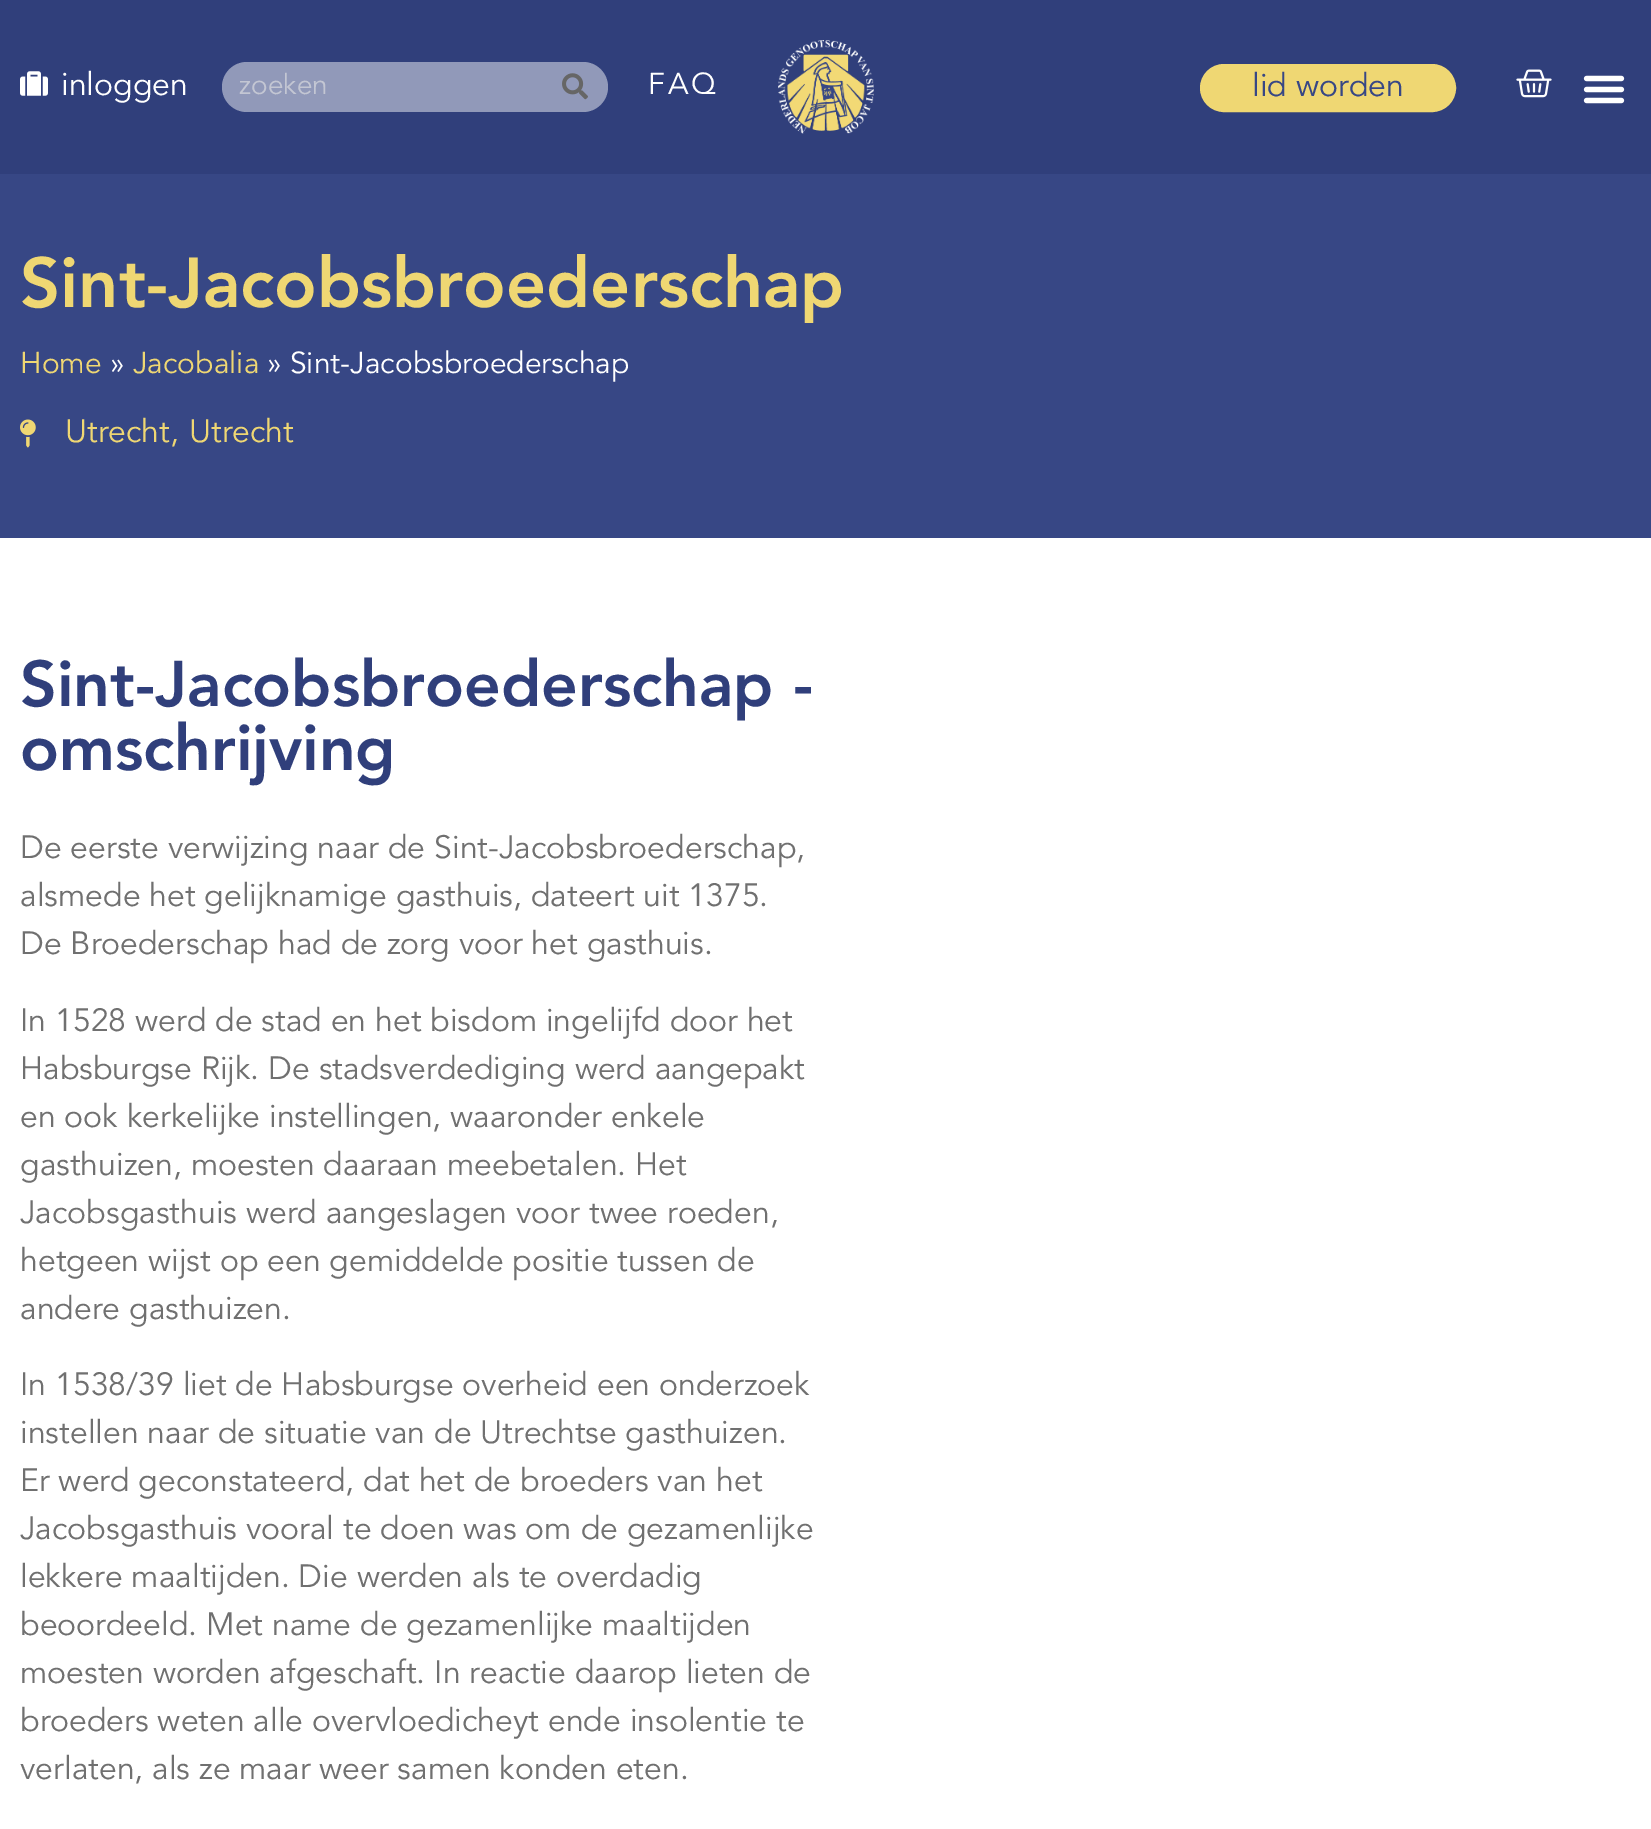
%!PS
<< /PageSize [1651 1829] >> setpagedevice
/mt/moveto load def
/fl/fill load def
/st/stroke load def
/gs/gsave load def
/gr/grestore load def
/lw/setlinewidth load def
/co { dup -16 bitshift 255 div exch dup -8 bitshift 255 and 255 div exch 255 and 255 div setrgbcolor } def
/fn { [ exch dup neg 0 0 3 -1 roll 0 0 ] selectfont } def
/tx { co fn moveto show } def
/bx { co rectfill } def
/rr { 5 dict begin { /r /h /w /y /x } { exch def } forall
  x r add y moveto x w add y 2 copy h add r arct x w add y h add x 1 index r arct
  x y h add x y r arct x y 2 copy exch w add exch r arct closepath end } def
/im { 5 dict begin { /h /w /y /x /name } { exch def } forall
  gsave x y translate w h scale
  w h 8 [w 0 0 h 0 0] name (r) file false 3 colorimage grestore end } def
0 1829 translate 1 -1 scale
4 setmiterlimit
0 0 1651 1829 16#FFFFFF bx
0 0 1651 174 16#303F7B bx
(media/1.raw) 20 71 28 25 im
16#9199B9 co
222 62 386 50 25 rr fl
(media/2.raw) 562 73 26 27 im
(media/3.raw) 778 40 96 94 im
16#EFD773 co
1201 65 254 46 23 rr gs fl gr
2 lw
st
(media/4.raw) 1516 69 36 29 im
(media/5.raw) 1583 75 42 29 im
0 174 1651 364 16#374785 bx
(media/6.raw) 20 419 16 29 im
(inloggen) 61 95 /Avenir-Regular 32 16#FFFFFF tx
(zoeken) 239 94 /Avenir-Regular 28 16#C3C6D3 tx
/Avenir-Regular 30 fn
16#FFFFFF co
648 94 mt 3 0 (FAQ) ashow
(lid worden) 1252 96 /Avenir-Regular 32 16#374785 tx
(Sint-Jacobsbroederschap) 20 307 /Avenir-Black 70 16#EFD773 tx
(Home) 20 373 /Avenir-Regular 30 16#EFD773 tx
(») 110 373 /Avenir-Regular 30 16#FFFFFF tx
(Jacobalia) 133 373 /Avenir-Regular 30 16#EFD773 tx
(» Sint-Jacobsbroederschap) 267 373 /Avenir-Regular 30 16#FFFFFF tx
(Utrecht,) 65 442 /Avenir-Regular 32 16#EFD773 tx
(Utrecht) 189 442 /Avenir-Regular 32 16#EFD773 tx
(Sint-Jacobsbroederschap -) 20 706 /Avenir-Black 64 16#303F7B tx
(omschrijving) 20 770 /Avenir-Black 64 16#303F7B tx
(De eerste verwijzing naar de Sint-Jacobsbroederschap,) 20 858 /Avenir-Regular 32 16#707070 tx
(alsmede het gelijknamige gasthuis, dateert uit 1375.) 20 906 /Avenir-Regular 32 16#707070 tx
(De Broederschap had de zorg voor het gasthuis.) 20 954 /Avenir-Regular 32 16#707070 tx
(In 1528 werd de stad en het bisdom ingelijfd door het) 20 1031 /Avenir-Regular 32 16#707070 tx
(Habsburgse Rijk. De stadsverdediging werd aangepakt) 20 1079 /Avenir-Regular 32 16#707070 tx
(en ook kerkelijke instellingen, waaronder enkele) 20 1127 /Avenir-Regular 32 16#707070 tx
(gasthuizen, moesten daaraan meebetalen. Het) 20 1175 /Avenir-Regular 32 16#707070 tx
(Jacobsgasthuis werd aangeslagen voor twee roeden,) 20 1223 /Avenir-Regular 32 16#707070 tx
(hetgeen wijst op een gemiddelde positie tussen de) 20 1271 /Avenir-Regular 32 16#707070 tx
(andere gasthuizen.) 20 1319 /Avenir-Regular 32 16#707070 tx
(In 1538/39 liet de Habsburgse overheid een onderzoek) 20 1395 /Avenir-Regular 32 16#707070 tx
(instellen naar de situatie van de Utrechtse gasthuizen.) 20 1443 /Avenir-Regular 32 16#707070 tx
(Er werd geconstateerd, dat het de broeders van het) 20 1491 /Avenir-Regular 32 16#707070 tx
(Jacobsgasthuis vooral te doen was om de gezamenlijke) 20 1539 /Avenir-Regular 32 16#707070 tx
(lekkere maaltijden. Die werden als te overdadig) 20 1587 /Avenir-Regular 32 16#707070 tx
(beoordeeld. Met name de gezamenlijke maaltijden) 20 1635 /Avenir-Regular 32 16#707070 tx
(moesten worden afgeschaft. In reactie daarop lieten de) 20 1683 /Avenir-Regular 32 16#707070 tx
(broeders weten alle overvloedicheyt ende insolentie te) 20 1731 /Avenir-Regular 32 16#707070 tx
(verlaten, als ze maar weer samen konden eten.) 20 1779 /Avenir-Regular 32 16#707070 tx
showpage
